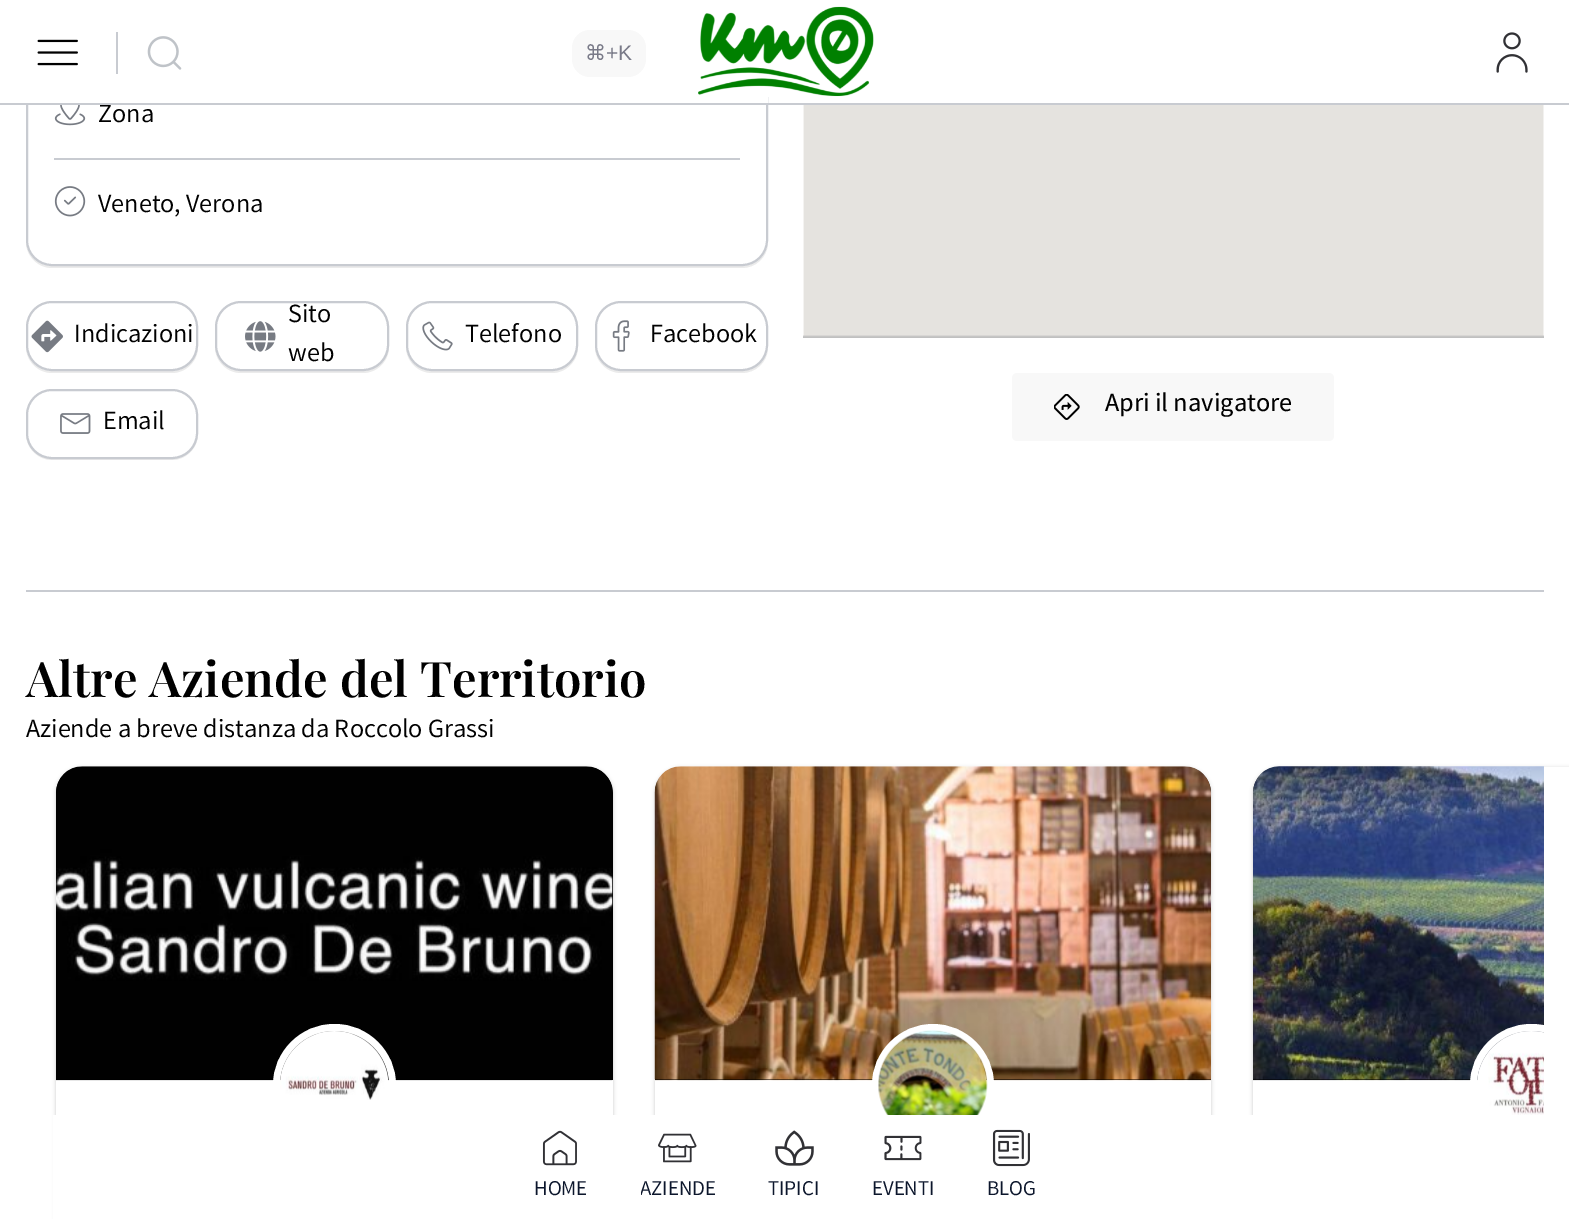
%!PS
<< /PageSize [1569 1219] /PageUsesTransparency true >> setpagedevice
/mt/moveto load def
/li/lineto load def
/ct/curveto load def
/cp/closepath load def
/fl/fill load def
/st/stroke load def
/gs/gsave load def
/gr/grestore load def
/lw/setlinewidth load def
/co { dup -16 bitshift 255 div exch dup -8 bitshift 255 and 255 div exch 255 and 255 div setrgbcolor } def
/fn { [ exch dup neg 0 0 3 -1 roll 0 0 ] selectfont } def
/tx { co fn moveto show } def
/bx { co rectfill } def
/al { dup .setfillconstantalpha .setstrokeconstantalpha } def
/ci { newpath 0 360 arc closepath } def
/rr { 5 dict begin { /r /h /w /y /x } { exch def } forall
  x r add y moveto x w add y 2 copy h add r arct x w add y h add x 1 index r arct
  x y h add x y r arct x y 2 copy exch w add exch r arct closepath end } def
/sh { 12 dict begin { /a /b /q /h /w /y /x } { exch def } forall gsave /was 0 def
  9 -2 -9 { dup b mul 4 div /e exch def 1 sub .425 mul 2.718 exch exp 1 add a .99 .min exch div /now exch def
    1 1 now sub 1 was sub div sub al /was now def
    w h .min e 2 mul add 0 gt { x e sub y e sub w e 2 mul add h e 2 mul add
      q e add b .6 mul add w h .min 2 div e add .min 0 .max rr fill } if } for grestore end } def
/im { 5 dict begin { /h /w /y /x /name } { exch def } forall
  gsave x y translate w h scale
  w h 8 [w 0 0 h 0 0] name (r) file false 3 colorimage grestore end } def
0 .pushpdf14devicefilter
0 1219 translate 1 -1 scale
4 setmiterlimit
0 0 1569 1219 16#FFFFFF bx
16#EBEBEB co
26 84 mt 26 89 li 26 242 li 26 256 38 268 52 268 ct 742 268 li 756 268 767 257 768 244 ct 766 256 755 266 742 266 ct 52 266 li 38 266 26 254 26 240 ct cp fl
16#FFFFFF co
27 62 740 203 25 rr gs fl gr
16#C8CBD1 co
2 lw
st
26 61 742 42 16#FFFFFF bx
(media/1.raw) 37 39 41 27 im
116 32 2 42 16#C8CBD1 bx
(media/2.raw) 147 36 35 34 im
16#F8F8F8 co
572 30 74 47 18 rr fl
(media/3.raw) 698 6 176 91 im
(media/4.raw) 1496 32 32 41 im
16#000000 co
56 768 557 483 26 2 .2 sh
16#FFFFFF co
56 767 557 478 26 rr fl
16#000000 co
82 767 mt 587 767 li 601.5 767 613 778.5 613 793 ct 613 1080 li 56 1080 li 56 793 li 56 778.5 67.5 767 82 767 ct cp fl
(media/19.raw) 56 766 557 315 im
16#FFFFFF co
7 lw
276.5 1027.5 116 115 57.5 rr st
16#000000 co
655 768 556 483 26 2 .2 sh
16#FFFFFF co
655 767 556 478 26 rr fl
16#000000 co
681 767 mt 1185 767 li 1199.5 767 1211 778.5 1211 793 ct 1211 1080 li 655 1080 li 655 793 li 655 778.5 666.5 767 681 767 ct cp fl
(media/21.raw) 654 766 557 315 im
16#FFFFFF co
933 1085 57.5 ci st
gs
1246 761 mt 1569 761 li 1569 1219 li 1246 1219 li cp 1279 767 mt 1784 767 li 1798.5 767 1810 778.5 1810 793 ct 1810 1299 li 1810 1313.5 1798.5 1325 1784 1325 ct 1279 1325 li 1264.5 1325 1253 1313.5 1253 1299 ct 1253 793 li 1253 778.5 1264.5 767 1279 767 ct cp eoclip newpath
16#000000 co
1253 768 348 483 26 2 .2 sh
gr
53 1115 1200 104 16#FFFFFF bx
(media/5.raw) 542 1130 35 36 im
(media/6.raw) 658 1133 39 30 im
(media/7.raw) 775 1130 39 36 im
(media/8.raw) 884 1135 38 26 im
(media/9.raw) 992 1129 38 38 im
54 158 686 2 16#C8CBD1 bx
(media/10.raw) 54 105 32 21 im
(media/11.raw) 54 186 32 31 im
16#EBEBEB co
26 324 mt 26 347 li 26 361 38 373 52 373 ct 172 373 li 186 373 198 361 198 347 ct 198 324 li 198 345 li 198 359 186 371 172 371 ct 52 371 li 38 371 26 359 26 345 ct cp fl
16#C8CBD1 co
2 lw
27 302 170 68 25 rr st
(media/12.raw) 31 320 32 33 im
16#EBEBEB co
215 324 mt 215 347 li 215 361 227 373 241 373 ct 363 373 li 377 373 389 361 389 347 ct 389 329 li 389 326 389 324 388 321 ct 388 327 li 388 345 li 388 359 377 371 362 371 ct 242 371 li 227 371 215 359 215 345 ct cp fl
16#C8CBD1 co
216 302 172 68 25 rr st
(media/13.raw) 245 321 31 31 im
16#EBEBEB co
406 345 mt 406 347 li 406 361 418 373 432 373 ct 552 373 li 566 373 578 361 578 347 ct 578 329 li 578 326 578 324 577 321 ct 578 327 li 578 345 li 578 359 566 371 551 371 ct 432 371 li 418 371 406 359 406 345 ct cp fl
16#C8CBD1 co
407 302 170 68 25 rr st
(media/14.raw) 422 321 31 30 im
16#EBEBEB co
595 345 mt 595 347 li 595 361 607 373 621 373 ct 742 373 li 756 373 767 362 768 349 ct 766 361 755 371 742 371 ct 621 371 li 607 371 595 359 595 345 ct cp fl
16#C8CBD1 co
596 302 171 68 25 rr st
(media/15.raw) 612 320 18 32 im
16#EBEBEB co
27 410 mt 26 416 li 26 434 li 26 448 38 460 52 460 ct 172 460 li 186 460 198 448 198 434 ct 198 416 li 197 410 li 198 432 li 198 447 186 458 172 458 ct 52 458 li 38 458 26 447 26 432 ct cp fl
16#C8CBD1 co
27 390 170 68 25 rr st
(media/16.raw) 60 413 31 21 im
(media/17.raw) 803 105 741 233 im
16#F8F8F8 co
1012 373 322 68 5 rr fl
(media/18.raw) 1054 394 26 26 im
26 590 1518 2 16#C8CBD1 bx
(media/20.raw) 280 1031 109 69 im
(media/22.raw) 878 1030 110 85 im
16#FFFFFF co
1279 767 mt 1544 767 li 1544 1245 li 1279 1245 li 1264.5 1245 1253 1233.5 1253 1219 ct 1253 793 li 1253 778.5 1264.5 767 1279 767 ct cp fl
16#000000 co
1279 767 mt 1544 767 li 1544 1080 li 1253 1080 li 1253 793 li 1253 778.5 1264.5 767 1279 767 ct cp fl
(media/23.raw) 1253 766 291 315 im
gs
1253 767 291 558 rectclip
16#FFFFFF co
7 lw
1473.5 1027.5 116 115 57.5 rr st
gr
(media/24.raw) 1477 1031 67 84 im
(⌘) 585 60 /DejaVuSans-Regular 21 16#797A88 tx
(+K) 606 60 /LiberationSans-Regular 21 16#797A88 tx
(HOME) 534 1195 /Varta-Regular 21 16#0C162C tx
gs
641 1176 75 30 rectclip
(AZIENDE) 640 1195 /Varta-Regular 21 16#0C162C tx
gr
(TIPICI) 768 1195 /Varta-Regular 21 16#0C162C tx
(EVENTI) 872 1195 /Varta-Regular 21 16#0C162C tx
(BLOG) 987 1195 /Varta-Regular 21 16#0C162C tx
(Zona) 98 122 /Varta-Regular 26.25 16#000000 tx
0 103 1569 2 16#C8CBD1 bx
(Veneto, Verona) 98 212 /Varta-Regular 26.25 16#000000 tx
(Indicazioni) 74 342 /Varta-Regular 26.25 16#000000 tx
(Sito) 288 322 /Varta-Regular 26.25 16#000000 tx
(web) 288 361 /Varta-Regular 26.25 16#000000 tx
(Telefono) 465 342 /Varta-Regular 26.25 16#000000 tx
(Facebook) 650 342 /Varta-Regular 26.25 16#000000 tx
(Email) 103 429 /Varta-Regular 26.25 16#000000 tx
(Apri il navigatore) 1105 411 /Varta-Medium 26.25 16#000000 tx
(Altre Aziende del Territorio) 26 697 /PlayfairDisplay-SemiBold 49 16#000000 tx
(Aziende a breve distanza da Roccolo Grassi) 26 737 /Varta-Regular 26.25 16#000000 tx
.poppdf14devicefilter showpage
